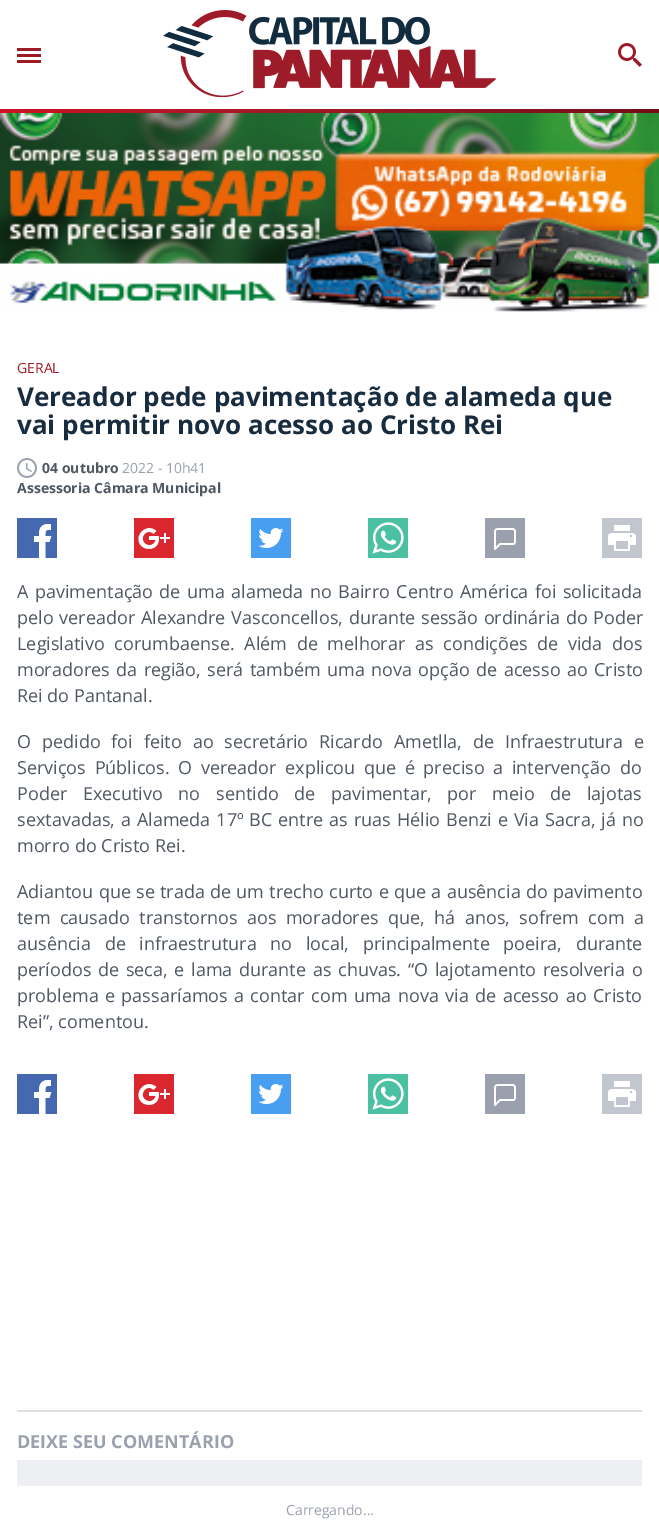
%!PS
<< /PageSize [659 1527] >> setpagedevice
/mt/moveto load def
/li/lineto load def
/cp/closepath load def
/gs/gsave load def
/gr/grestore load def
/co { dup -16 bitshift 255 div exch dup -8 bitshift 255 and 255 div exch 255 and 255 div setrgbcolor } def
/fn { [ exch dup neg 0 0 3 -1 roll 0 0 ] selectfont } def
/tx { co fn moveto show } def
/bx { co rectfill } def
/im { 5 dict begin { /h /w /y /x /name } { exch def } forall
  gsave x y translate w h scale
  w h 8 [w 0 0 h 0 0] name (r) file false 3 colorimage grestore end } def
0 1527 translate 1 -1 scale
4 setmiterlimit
0 0 659 1527 16#FFFFFF bx
17 54 24 3 16#9E1A27 bx
17 48 24 3 16#9E1A27 bx
17 60 24 3 16#9E1A27 bx
(media/1.raw) 163 10 333 87 im
(media/2.raw) 618 43 24 24 im
gs 0 109 mt 659 109 li 659 113 li 0 113 li cp clip newpath
<< /ShadingType 2 /ColorSpace /DeviceRGB /Coords [0 111 659 111] /Extend [true true] /Function << /FunctionType 3 /Domain [0 1] /Functions [<< /FunctionType 2 /Domain [0 1] /C0 [.796 .071 .145] /C1 [.62 .102 .153] /N 1 >> << /FunctionType 2 /Domain [0 1] /C0 [.62 .102 .153] /C1 [.455 .055 .094] /N 1 >>] /Bounds [.5] /Encode [0 1 0 1] >> >> shfill gr
(media/3.raw) 0 113 659 199 im
(media/4.raw) 17 458 20 20 im
(media/5.raw) 17 518 40 40 im
(media/6.raw) 134 518 40 40 im
(media/7.raw) 251 518 40 40 im
(media/8.raw) 368 518 40 40 im
(media/9.raw) 485 518 40 40 im
(media/10.raw) 602 518 40 40 im
(media/5.raw) 17 1074 40 40 im
(media/6.raw) 134 1074 40 40 im
(media/7.raw) 251 1074 40 40 im
(media/8.raw) 368 1074 40 40 im
(media/9.raw) 485 1074 40 40 im
(media/10.raw) 602 1074 40 40 im
17 1410 625 2 16#DEE0E6 bx
17 1460 625 26 16#EEEFF3 bx
(GERAL) 17 373 /OpenSans-Regular 14 16#9E1A27 tx
(Vereador pede pavimentação de alameda que) 17 406 /OpenSans-Bold 26 16#182C3F tx
(vai permitir novo acesso ao Cristo Rei) 17 434 /OpenSans-Bold 26 16#182C3F tx
(04 outubro) 42 473 /OpenSans-Bold 14 16#4F5863 tx
(2022 - 10h41) 122 473 /OpenSans-Regular 14 16#9AA0AD tx
(Assessoria Câmara Municipal) 17 493 /OpenSans-Bold 14 16#4F5863 tx
/OpenSans-Regular 18 fn
17 598 mt 1.75 0 32 (A pavimentação de uma alameda no Bairro Centro América foi solicitada) widthshow
17 624 mt 1 0 32 (pelo vereador Alexandre Vasconcellos, durante sessão ordinária do Poder) widthshow
17 650 mt 5 0 32 (Legislativo corumbaense. Além de melhorar as condições de vida dos) widthshow
17 676 mt 1.75 0 32 (moradores da região, será também uma nova opção de acesso ao Cristo) widthshow
(Rei do Pantanal.) 17 702 /OpenSans-Regular 18 16#4F5863 tx
17 748 mt 6.25 0 32 (O pedido foi feito ao secretário Ricardo Ametlla, de Infraestrutura e) widthshow
17 774 mt 4 0 32 (Serviços Públicos. O vereador explicou que é preciso a intervenção do) widthshow
17 800 mt 11 0 32 (Poder Executivo no sentido de pavimentar, por meio de lajotas) widthshow
17 826 mt 1.25 0 32 (sextavadas, a Alameda 17º BC entre as ruas Hélio Benzi e Via Sacra, já no) widthshow
(morro do Cristo Rei.) 17 852 /OpenSans-Regular 18 16#4F5863 tx
17 898 mt .6 0 32 (Adiantou que se trada de um trecho curto e que a ausência do pavimento) widthshow
17 924 mt 4.75 0 32 (tem causado transtornos aos moradores que, há anos, sofrem com a) widthshow
17 950 mt 9 0 32 (ausência de infraestrutura no local, principalmente poeira, durante) widthshow
17 976 mt 2 0 32 (períodos de seca, e lama durante as chuvas. “O lajotamento resolveria o) widthshow
17 1002 mt 1.75 0 32 (problema e passaríamos a contar com uma nova via de acesso ao Cristo) widthshow
(Rei”, comentou.) 17 1028 /OpenSans-Regular 18 16#4F5863 tx
(DEIXE SEU COMENTÁRIO) 17 1448 /OpenSans-Bold 18 16#9AA0AD tx
(Carregando...) 286 1515 /OpenSans-Regular 14 16#9AA0AD tx
showpage
